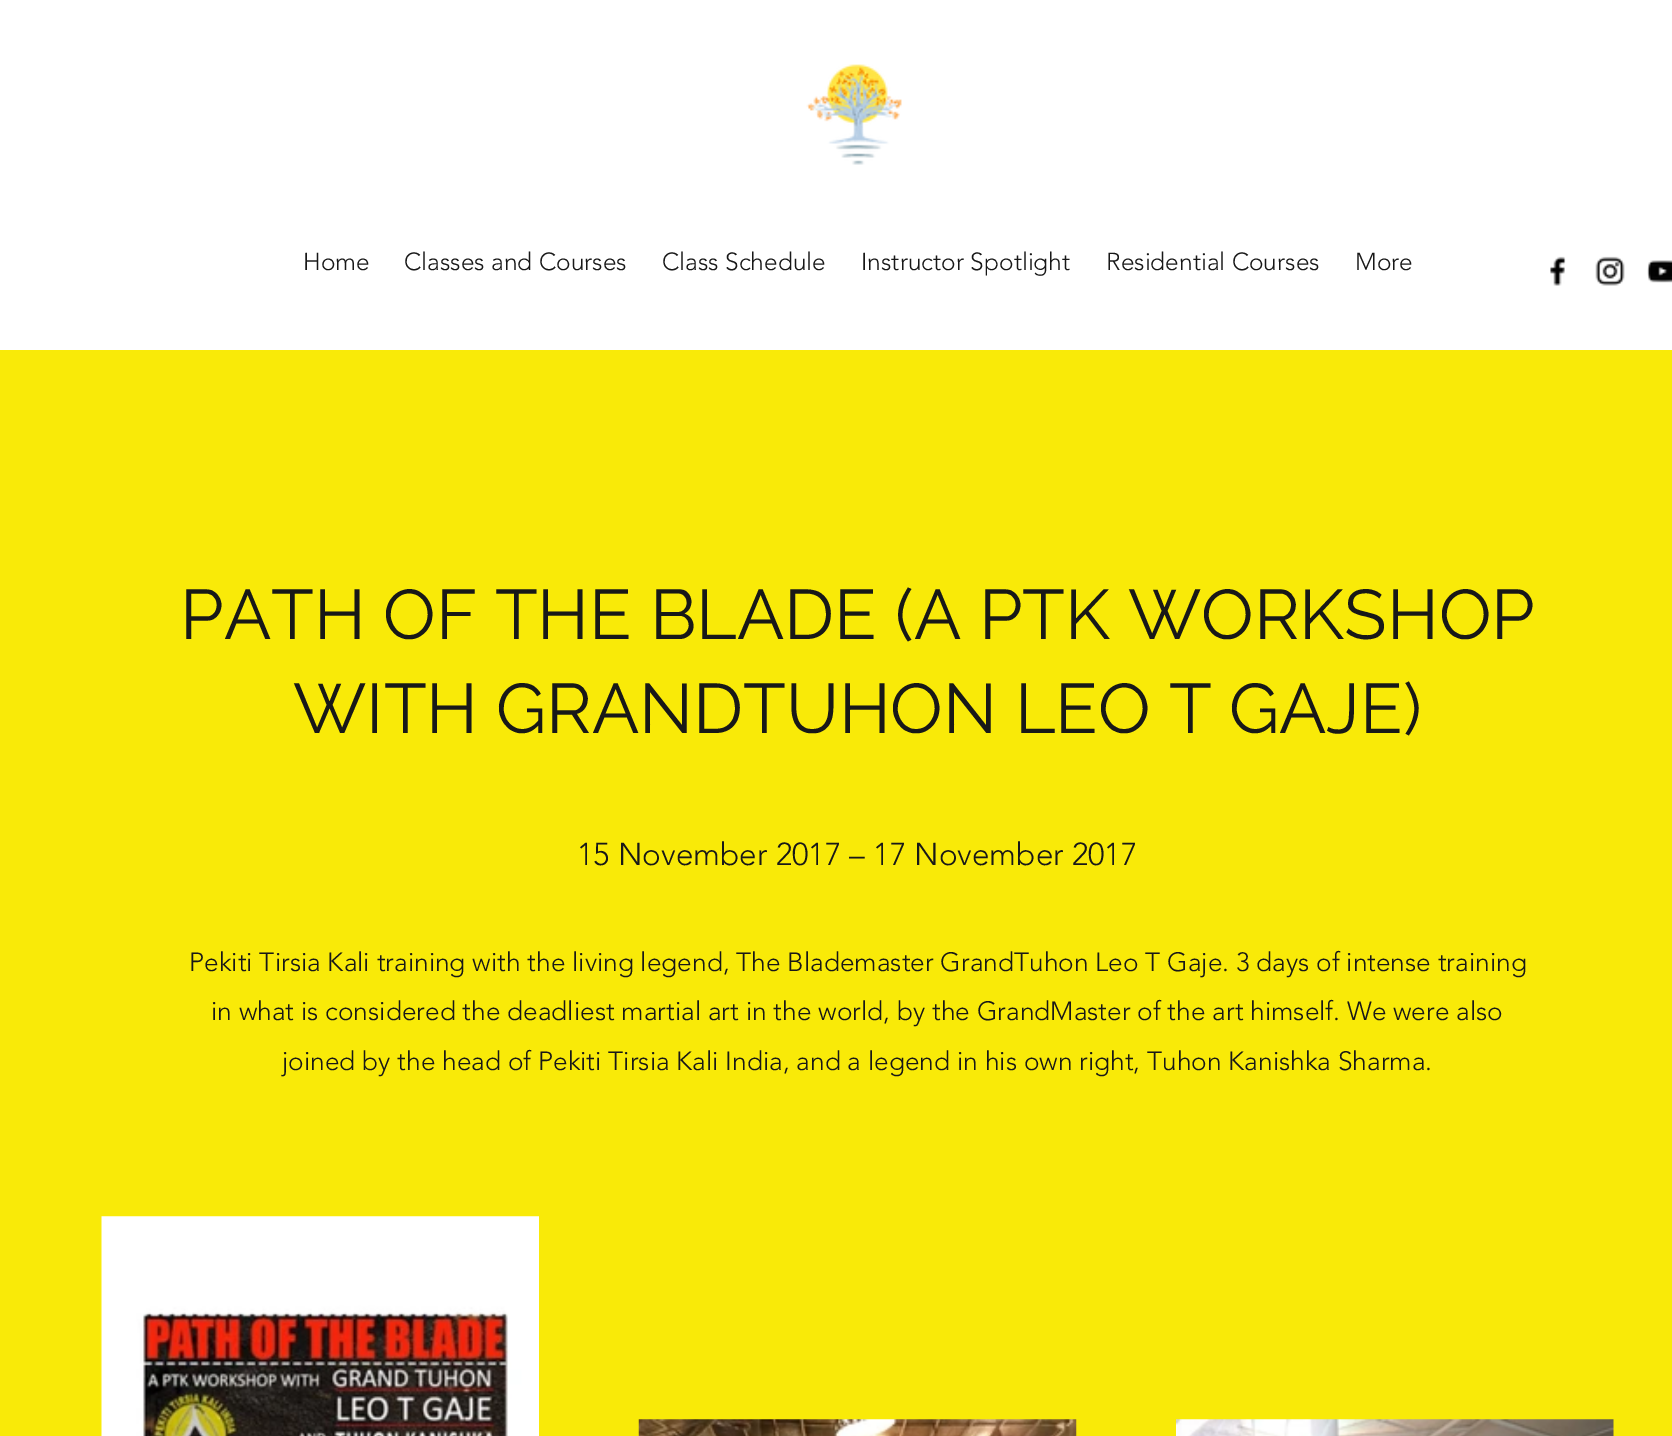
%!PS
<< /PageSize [1672 1436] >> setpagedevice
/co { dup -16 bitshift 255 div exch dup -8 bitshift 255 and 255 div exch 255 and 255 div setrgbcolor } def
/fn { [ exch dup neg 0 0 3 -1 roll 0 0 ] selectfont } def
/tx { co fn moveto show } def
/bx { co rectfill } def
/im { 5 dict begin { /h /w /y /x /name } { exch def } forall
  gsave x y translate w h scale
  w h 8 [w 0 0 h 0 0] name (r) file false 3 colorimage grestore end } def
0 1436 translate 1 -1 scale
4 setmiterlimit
0 0 1672 1436 16#FFFFFF bx
(media/1.raw) 806 64 96 101 im
(media/2.raw) 1550 256 16 30 im
(media/3.raw) 1595 256 30 30 im
(media/4.raw) 1647 260 25 23 im
0 350 1672 1086 16#F9EA08 bx
(media/5.raw) 101 1216 438 220 im
(media/6.raw) 638 1419 439 17 im
(media/7.raw) 1176 1419 438 17 im
(Home) 303 270 /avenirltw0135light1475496-Light 24.5 16#181818 tx
(Classes and Courses) 404 270 /avenirltw0135light1475496-Light 24.5 16#181818 tx
(Class Schedule) 662 270 /avenirltw0135light1475496-Light 24.5 16#181818 tx
(Instructor Spotlight) 861 270 /avenirltw0135light1475496-Light 24.5 16#181818 tx
(Residential Courses) 1106 270 /avenirltw0135light1475496-Light 24.5 16#181818 tx
(More) 1355 270 /avenirltw0135light1475496-Light 24.5 16#181818 tx
(PATH OF THE BLADE \(A PTK WORKSHOP) 180 639 /Raleway-Regular 70 16#181818 tx
(WITH GRANDTUHON LEO T GAJE\)) 293 733 /Raleway-Regular 70 16#181818 tx
(15 November 2017 – 17 November 2017) 577 865 /avenirltw0135light1475496-Light 31.5 16#181818 tx
(Pekiti Tirsia Kali training with the living legend, The Blademaster GrandTuhon Leo T Gaje. 3 days of intense training) 189 971 /avenirltw0135light1475496-Light 26.25 16#181818 tx
(in what is considered the deadliest martial art in the world, by the GrandMaster of the art himself. We were also) 211 1020 /avenirltw0135light1475496-Light 26.25 16#181818 tx
(joined by the head of Pekiti Tirsia Kali India, and a legend in his own right, Tuhon Kanishka Sharma.) 282 1070 /avenirltw0135light1475496-Light 26.25 16#181818 tx
showpage
